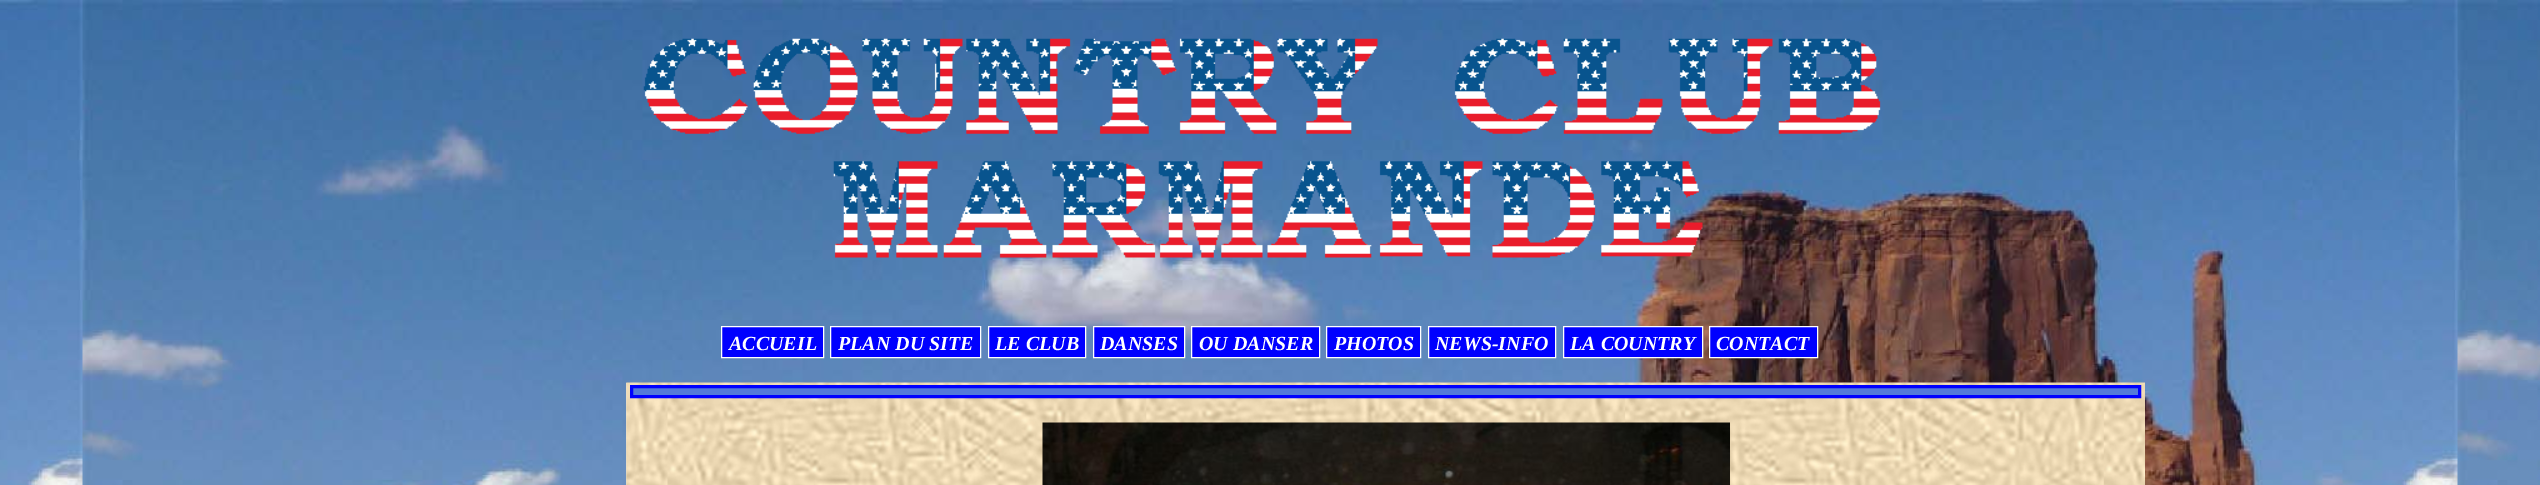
%!PS
<< /PageSize [2540 485] >> setpagedevice
/mt/moveto load def
/li/lineto load def
/cp/closepath load def
/fl/fill load def
/st/stroke load def
/gs/gsave load def
/gr/grestore load def
/lw/setlinewidth load def
/co { dup -16 bitshift 255 div exch dup -8 bitshift 255 and 255 div exch 255 and 255 div setrgbcolor } def
/fn { [ exch dup neg 0 0 3 -1 roll 0 0 ] selectfont } def
/tx { co fn moveto show } def
/bx { co rectfill } def
/im { 5 dict begin { /h /w /y /x /name } { exch def } forall
  gsave x y translate w h scale
  w h 8 [w 0 0 h 0 0] name (r) file false 3 colorimage grestore end } def
0 485 translate 1 -1 scale
4 setmiterlimit
0 0 2540 485 16#FFFFFF bx
(media/1.raw) 0 0 2540 485 im
(media/2.raw) 643 38 1238 220 im
16#0000FF co
721.5 326.5 mt 823.5 326.5 li 823.5 357.5 li 721.5 357.5 li cp gs fl gr
16#FFFFFF co
st
16#0000FF co
830.5 326.5 mt 980.5 326.5 li 980.5 357.5 li 830.5 357.5 li cp gs fl gr
16#FFFFFF co
st
16#0000FF co
988.5 326.5 mt 1085.5 326.5 li 1085.5 357.5 li 988.5 357.5 li cp gs fl gr
16#FFFFFF co
st
16#0000FF co
1093.5 326.5 mt 1184.5 326.5 li 1184.5 357.5 li 1093.5 357.5 li cp gs fl gr
16#FFFFFF co
st
16#0000FF co
1191.5 326.5 mt 1319.5 326.5 li 1319.5 357.5 li 1191.5 357.5 li cp gs fl gr
16#FFFFFF co
st
16#0000FF co
1326.5 326.5 mt 1420.5 326.5 li 1420.5 357.5 li 1326.5 357.5 li cp gs fl gr
16#FFFFFF co
st
16#0000FF co
1428.5 326.5 mt 1555.5 326.5 li 1555.5 357.5 li 1428.5 357.5 li cp gs fl gr
16#FFFFFF co
st
16#0000FF co
1563.5 326.5 mt 1702.5 326.5 li 1702.5 357.5 li 1563.5 357.5 li cp gs fl gr
16#FFFFFF co
st
16#0000FF co
1709.5 326.5 mt 1817.5 326.5 li 1817.5 357.5 li 1709.5 357.5 li cp gs fl gr
16#FFFFFF co
st
(media/3.raw) 626 382 1519 103 im
16#547AD9 co
631.5 386.5 mt 2139.5 386.5 li 2139.5 396.5 li 631.5 396.5 li cp gs fl gr
16#0000FF co
3 lw
st
(media/4.raw) 1042 422 688 63 im
(ACCUEIL) 729 350 /LiberationSerif-BoldItalic 20 16#FFFFFF tx
(PLAN DU SITE) 838 350 /LiberationSerif-BoldItalic 20 16#FFFFFF tx
(LE CLUB) 995 350 /LiberationSerif-BoldItalic 20 16#FFFFFF tx
(DANSES) 1100 350 /LiberationSerif-BoldItalic 20 16#FFFFFF tx
(OU DANSER) 1199 350 /LiberationSerif-BoldItalic 20 16#FFFFFF tx
(PHOTOS) 1334 350 /LiberationSerif-BoldItalic 20 16#FFFFFF tx
(NEWS-INFO) 1435 350 /LiberationSerif-BoldItalic 20 16#FFFFFF tx
(LA COUNTRY) 1570 350 /LiberationSerif-BoldItalic 20 16#FFFFFF tx
(CONTACT) 1716 350 /LiberationSerif-BoldItalic 20 16#FFFFFF tx
showpage
